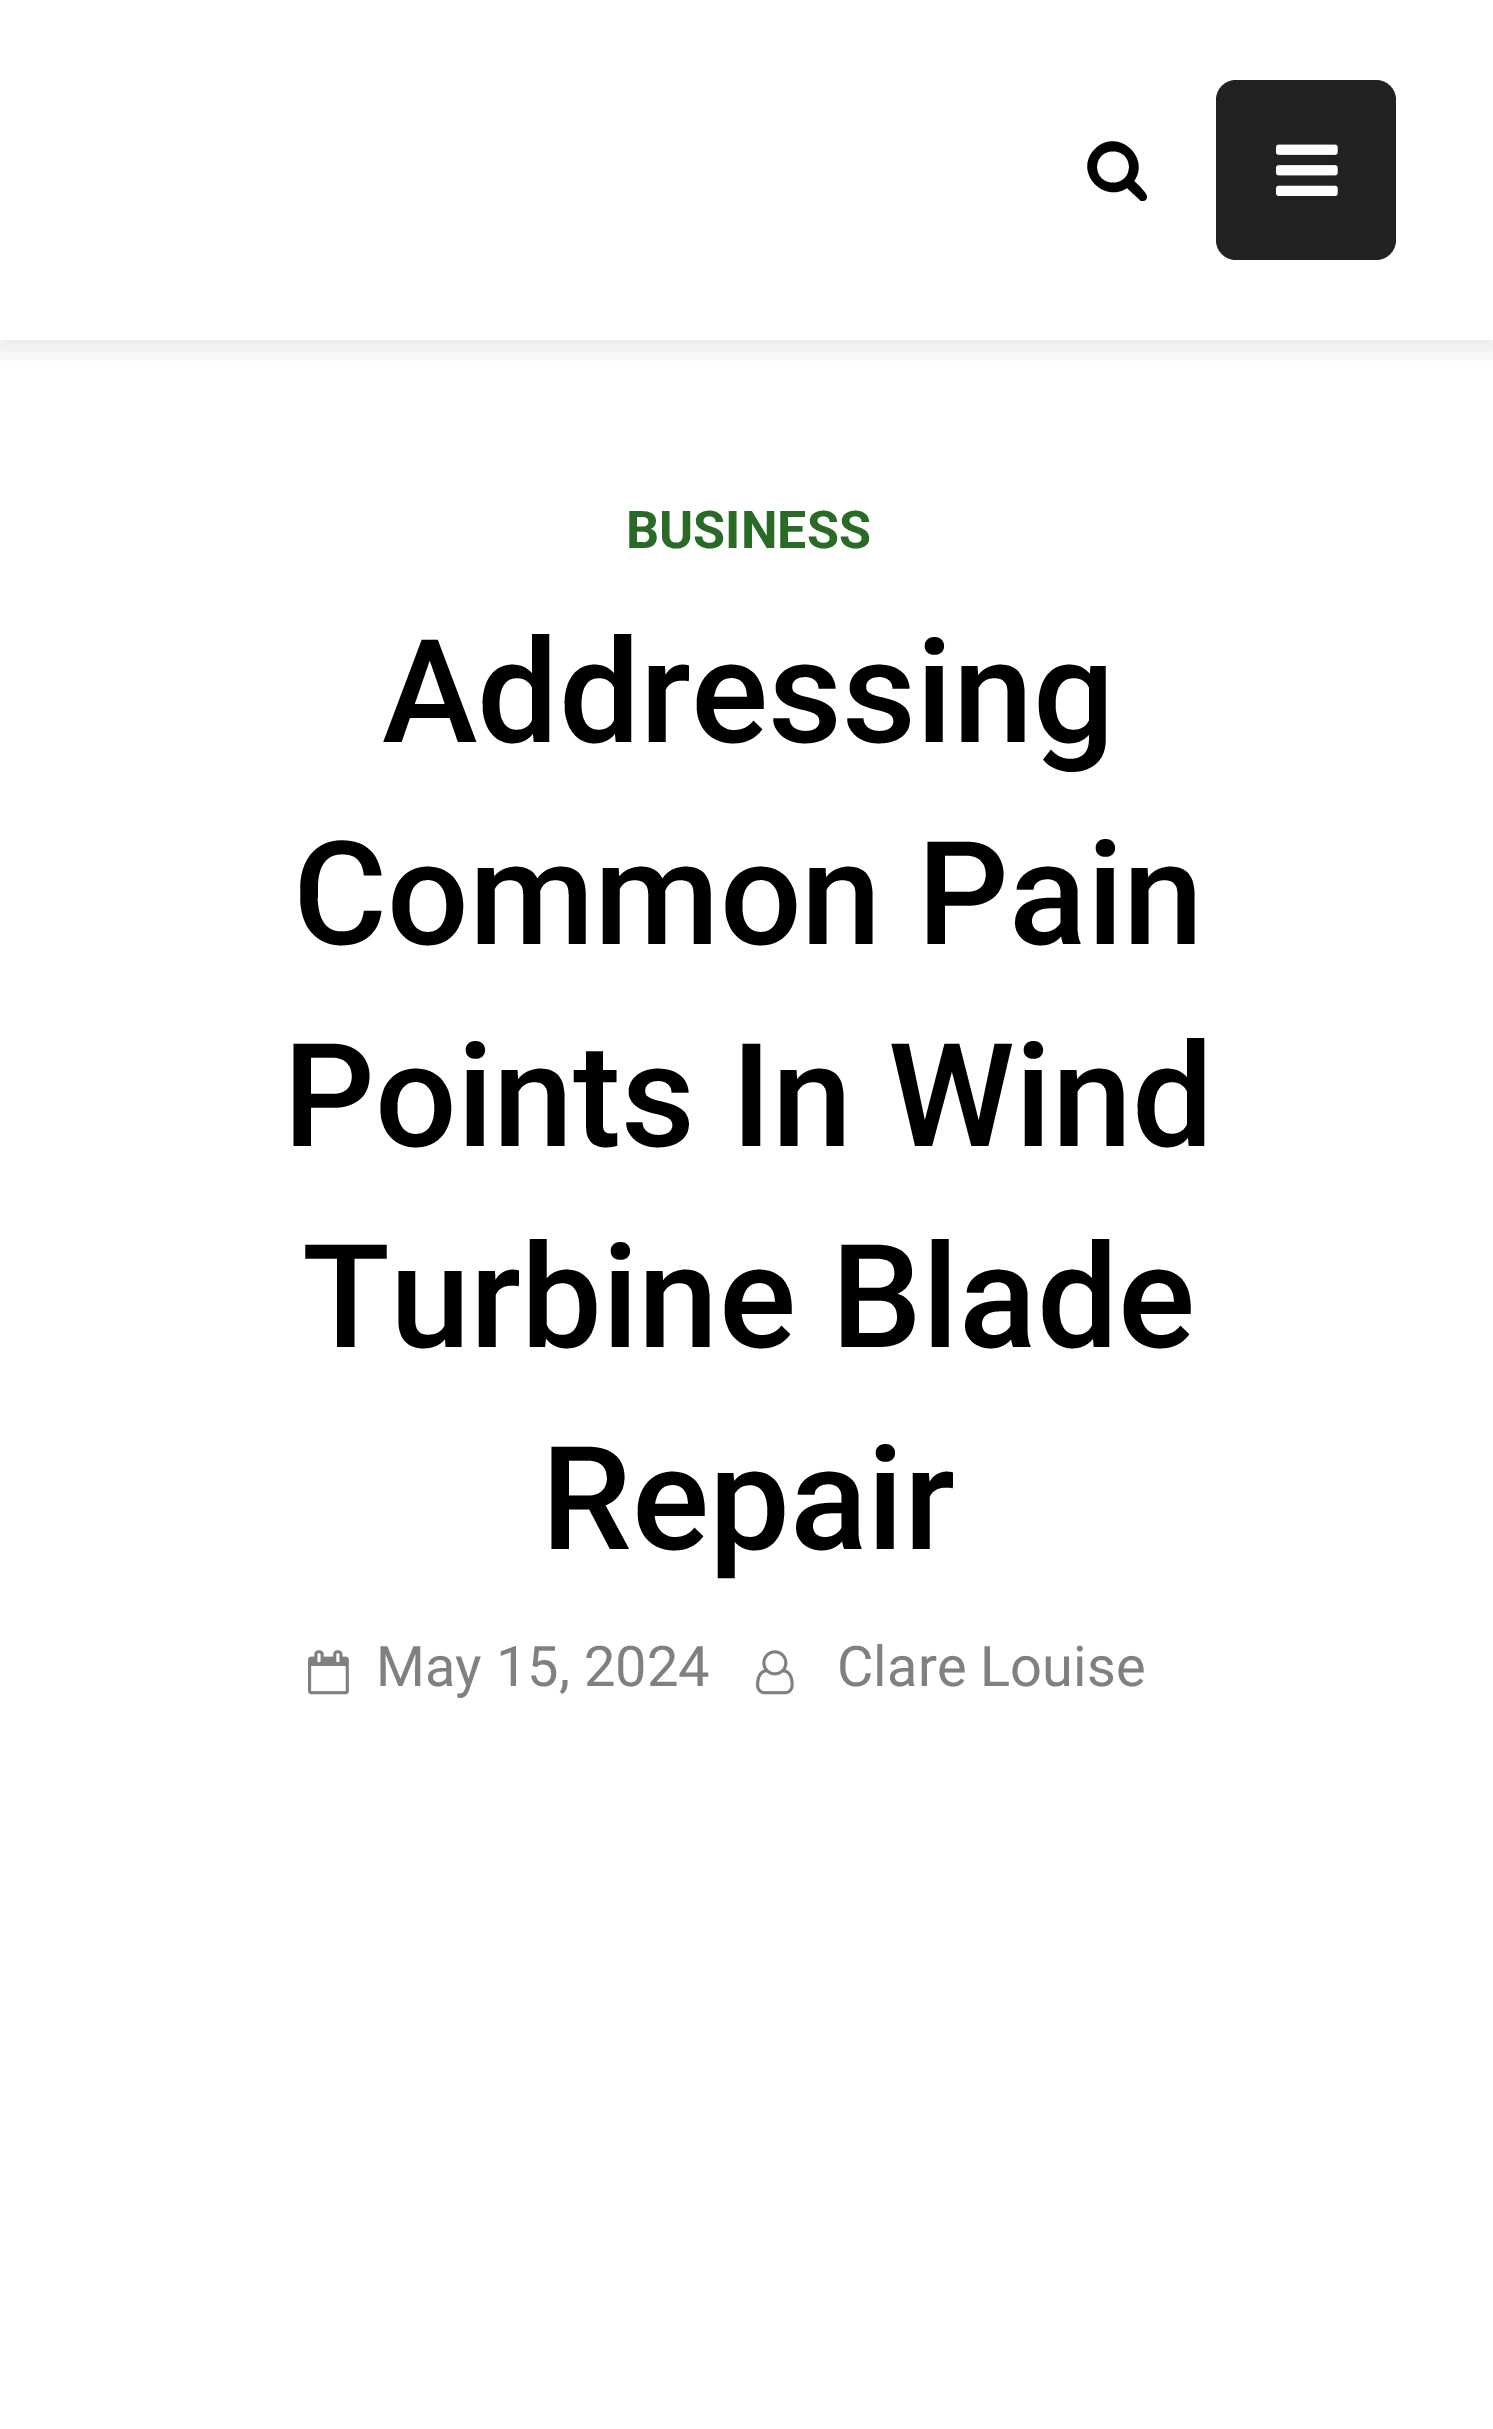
%!PS
<< /PageSize [1493 2429] /PageUsesTransparency true >> setpagedevice
/mt/moveto load def
/li/lineto load def
/ct/curveto load def
/cp/closepath load def
/fl/fill load def
/gs/gsave load def
/gr/grestore load def
/co { dup -16 bitshift 255 div exch dup -8 bitshift 255 and 255 div exch 255 and 255 div setrgbcolor } def
/fn { [ exch dup neg 0 0 3 -1 roll 0 0 ] selectfont } def
/tx { co fn moveto show } def
/bx { co rectfill } def
/al { dup .setfillconstantalpha .setstrokeconstantalpha } def
/rr { 5 dict begin { /r /h /w /y /x } { exch def } forall
  x r add y moveto x w add y 2 copy h add r arct x w add y h add x 1 index r arct
  x y h add x y r arct x y 2 copy exch w add exch r arct closepath end } def
/sh { 12 dict begin { /a /b /q /h /w /y /x } { exch def } forall gsave /was 0 def
  9 -2 -9 { dup b mul 4 div /e exch def 1 sub .425 mul 2.718 exch exp 1 add a .99 .min exch div /now exch def
    1 1 now sub 1 was sub div sub al /was now def
    w h .min e 2 mul add 0 gt { x e sub y e sub w e 2 mul add h e 2 mul add
      q e add b .6 mul add w h .min 2 div e add .min 0 .max rr fill } if } for grestore end } def
/im { 5 dict begin { /h /w /y /x /name } { exch def } forall
  gsave x y translate w h scale
  w h 8 [w 0 0 h 0 0] name (r) file false 3 colorimage grestore end } def
0 .pushpdf14devicefilter
0 2429 translate 1 -1 scale
4 setmiterlimit
0 0 1493 2429 16#FFFFFF bx
gs
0 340 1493 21 rectclip
16#000000 co
0 8 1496 340 0 16 .1 sh
gr
16#000000 co
1129 167 mt 1129 188 1097 188 1097 167 ct 1097 146 1129 146 1129 167 ct cp 1147 197 mt 1147 193 1137 184 1134 181 ct 1151 157 1117 127 1095 149 ct 1073 171 1103 204 1127 188 ct 1140 200 li 1140 201 1142 201 1143 201 ct 1145 201 1147 199 1147 197 ct cp fl
16#222222 co
1216 80 180 180 20 rr fl
(media/1.raw) 1276 144 62 52 im
(media/2.raw) 308 1650 41 45 im
(media/3.raw) 756 1650 38 45 im
(BUSINESS) 626 548 /Roboto-Bold 52 16#296B26 tx
(Addressing) 382 742 /Roboto-Medium 144 16#000000 tx
(Common Pain) 293 944 /Roboto-Medium 144 16#000000 tx
(Points In Wind) 283 1146 /Roboto-Medium 144 16#000000 tx
(Turbine Blade) 302 1347 /Roboto-Medium 144 16#000000 tx
(Repair) 541 1549 /Roboto-Medium 144 16#000000 tx
(May 15, 2024) 376 1686 /Roboto-Regular 56 16#808080 tx
(Clare Louise) 837 1686 /Roboto-Regular 56 16#808080 tx
.poppdf14devicefilter showpage
